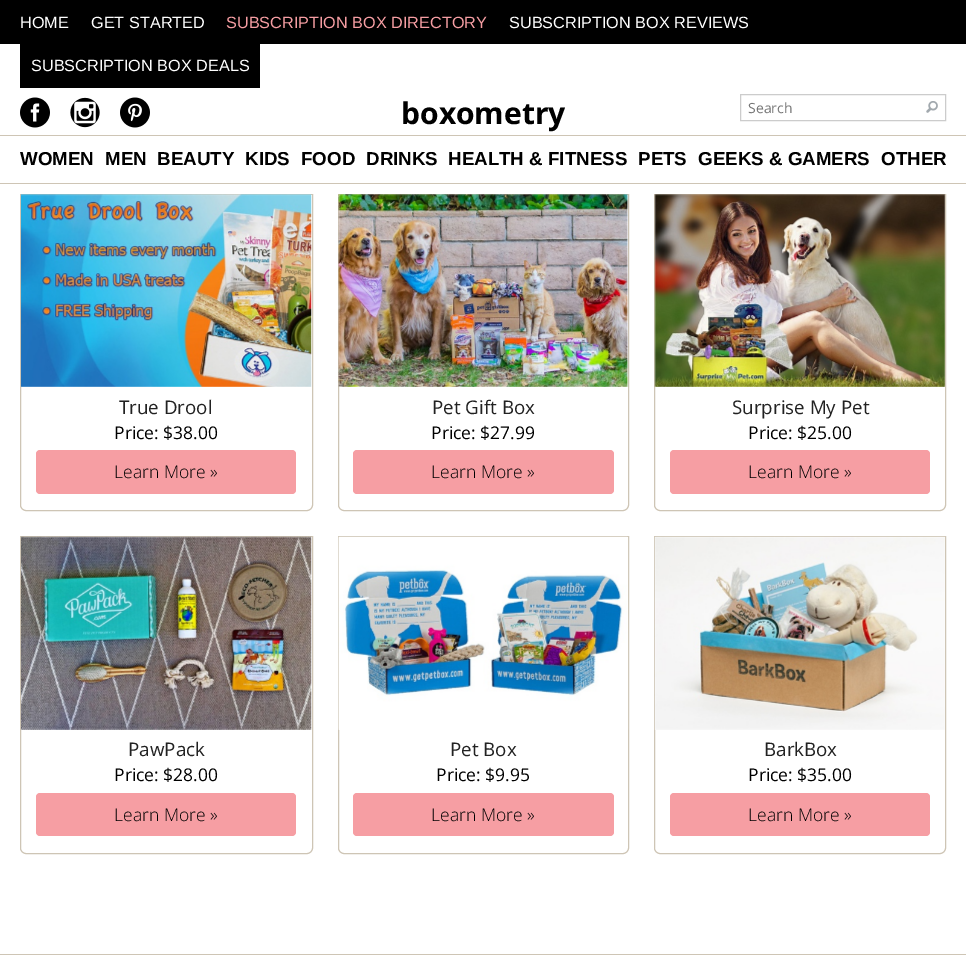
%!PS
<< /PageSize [966 959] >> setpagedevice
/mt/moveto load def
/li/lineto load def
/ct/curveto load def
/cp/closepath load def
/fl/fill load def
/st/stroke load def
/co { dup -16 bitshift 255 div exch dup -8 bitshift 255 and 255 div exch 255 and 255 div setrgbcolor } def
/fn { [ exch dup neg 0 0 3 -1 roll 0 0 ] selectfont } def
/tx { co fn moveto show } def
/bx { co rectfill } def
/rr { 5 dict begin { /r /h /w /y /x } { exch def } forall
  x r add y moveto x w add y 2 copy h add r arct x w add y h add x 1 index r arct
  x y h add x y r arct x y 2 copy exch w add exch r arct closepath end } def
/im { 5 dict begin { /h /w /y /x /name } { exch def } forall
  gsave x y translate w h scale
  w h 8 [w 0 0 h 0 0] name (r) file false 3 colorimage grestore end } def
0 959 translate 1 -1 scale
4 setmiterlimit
0 0 966 959 16#FFFFFF bx
0 0 966 44 16#000000 bx
20 44 240 44 16#000000 bx
(media/1.raw) 20 97 30 31 im
(media/2.raw) 70 97 30 31 im
(media/3.raw) 120 97 30 31 im
16#CCCCCC co
740.5 94.5 205 26 rectstroke
(media/4.raw) 926 101 12 12 im
0 135 966 1 16#CEC5B5 bx
0 183 966 1 16#CEC5B5 bx
20.5 194.5 mt 312.5 194.5 li 312.5 505 li 312.5 508 310 510.5 307 510.5 ct 26 510.5 li 23 510.5 20.5 508 20.5 505 ct cp st
(media/5.raw) 21 194 291 193 im
16#F69EA3 co
36 450 260 44 4 rr fl
16#CEC5B5 co
338.5 194.5 mt 628.5 194.5 li 628.5 505 li 628.5 508 626 510.5 623 510.5 ct 344 510.5 li 341 510.5 338.5 508 338.5 505 ct cp st
(media/6.raw) 338 194 291 193 im
16#F69EA3 co
353 450 261 44 4 rr fl
16#CEC5B5 co
654.5 194.5 mt 945.5 194.5 li 945.5 505 li 945.5 508 943 510.5 940 510.5 ct 660 510.5 li 657 510.5 654.5 508 654.5 505 ct cp st
(media/7.raw) 654 194 291 193 im
16#F69EA3 co
670 450 260 44 4 rr fl
16#CEC5B5 co
20.5 536.5 mt 312.5 536.5 li 312.5 848 li 312.5 851 310 853.5 307 853.5 ct 26 853.5 li 23 853.5 20.5 851 20.5 848 ct cp st
(media/8.raw) 21 536 291 194 im
16#F69EA3 co
36 793 260 43 4 rr fl
16#CEC5B5 co
338.5 536.5 mt 628.5 536.5 li 628.5 848 li 628.5 851 626 853.5 623 853.5 ct 344 853.5 li 341 853.5 338.5 851 338.5 848 ct cp st
(media/9.raw) 338 536 291 194 im
16#F69EA3 co
353 793 261 43 4 rr fl
16#CEC5B5 co
654.5 536.5 mt 945.5 536.5 li 945.5 848 li 945.5 851 943 853.5 940 853.5 ct 660 853.5 li 657 853.5 654.5 851 654.5 848 ct cp st
(media/10.raw) 654 536 291 194 im
16#F69EA3 co
670 793 260 43 4 rr fl
0 954 966 1 16#CEC5B5 bx
(HOME) 20 28 /LiberationSans-Regular 16.25 16#FFFFFF tx
(GET STARTED) 91 28 /LiberationSans-Regular 16.25 16#FFFFFF tx
(SUBSCRIPTION BOX DIRECTORY) 226 28 /LiberationSans-Regular 16.25 16#F69EA3 tx
(SUBSCRIPTION BOX REVIEWS) 509 28 /LiberationSans-Regular 16.25 16#FFFFFF tx
(SUBSCRIPTION BOX DEALS) 31 71 /LiberationSans-Regular 16.25 16#FFFFFF tx
(boxometry) 401 124 /OpenSans-Bold 30 16#000000 tx
(Search) 748 113 /OpenSans-Regular 14 16#757575 tx
(WOMEN) 20 165 /LiberationSans-Bold 18.75 16#000000 tx
(MEN) 105 165 /LiberationSans-Bold 18.75 16#000000 tx
(BEAUTY) 157 165 /LiberationSans-Bold 18.75 16#000000 tx
(KIDS) 245 165 /LiberationSans-Bold 18.75 16#000000 tx
(FOOD) 301 165 /LiberationSans-Bold 18.75 16#000000 tx
(DRINKS) 366 165 /LiberationSans-Bold 18.75 16#000000 tx
(HEALTH & FITNESS) 448 165 /LiberationSans-Bold 18.75 16#000000 tx
(PETS) 638 165 /LiberationSans-Bold 18.75 16#000000 tx
(GEEKS & GAMERS) 698 165 /LiberationSans-Bold 18.75 16#000000 tx
(OTHER) 881 165 /LiberationSans-Bold 18.75 16#000000 tx
(True Drool) 119 414 /OpenSans-Regular 18.75 16#222222 tx
(Price: $38.00) 114 439 /OpenSans-Regular 17.5 16#000000 tx
(Learn More ») 114 478 /OpenSans-Light 17.5 16#000000 tx
(Pet Gift Box) 432 414 /OpenSans-Regular 18.75 16#222222 tx
(Price: $27.99) 431 439 /OpenSans-Regular 17.5 16#000000 tx
(Learn More ») 431 478 /OpenSans-Light 17.5 16#000000 tx
(Surprise My Pet) 732 414 /OpenSans-Regular 18.75 16#222222 tx
(Price: $25.00) 748 439 /OpenSans-Regular 17.5 16#000000 tx
(Learn More ») 748 478 /OpenSans-Light 17.5 16#000000 tx
(PawPack) 128 756 /OpenSans-Regular 18.75 16#222222 tx
(Price: $28.00) 114 781 /OpenSans-Regular 17.5 16#000000 tx
(Learn More ») 114 821 /OpenSans-Light 17.5 16#000000 tx
(Pet Box) 450 756 /OpenSans-Regular 18.75 16#222222 tx
(Price: $9.95) 436 781 /OpenSans-Regular 17.5 16#000000 tx
(Learn More ») 431 821 /OpenSans-Light 17.5 16#000000 tx
(BarkBox) 764 756 /OpenSans-Regular 18.75 16#222222 tx
(Price: $35.00) 748 781 /OpenSans-Regular 17.5 16#000000 tx
(Learn More ») 748 821 /OpenSans-Light 17.5 16#000000 tx
showpage
